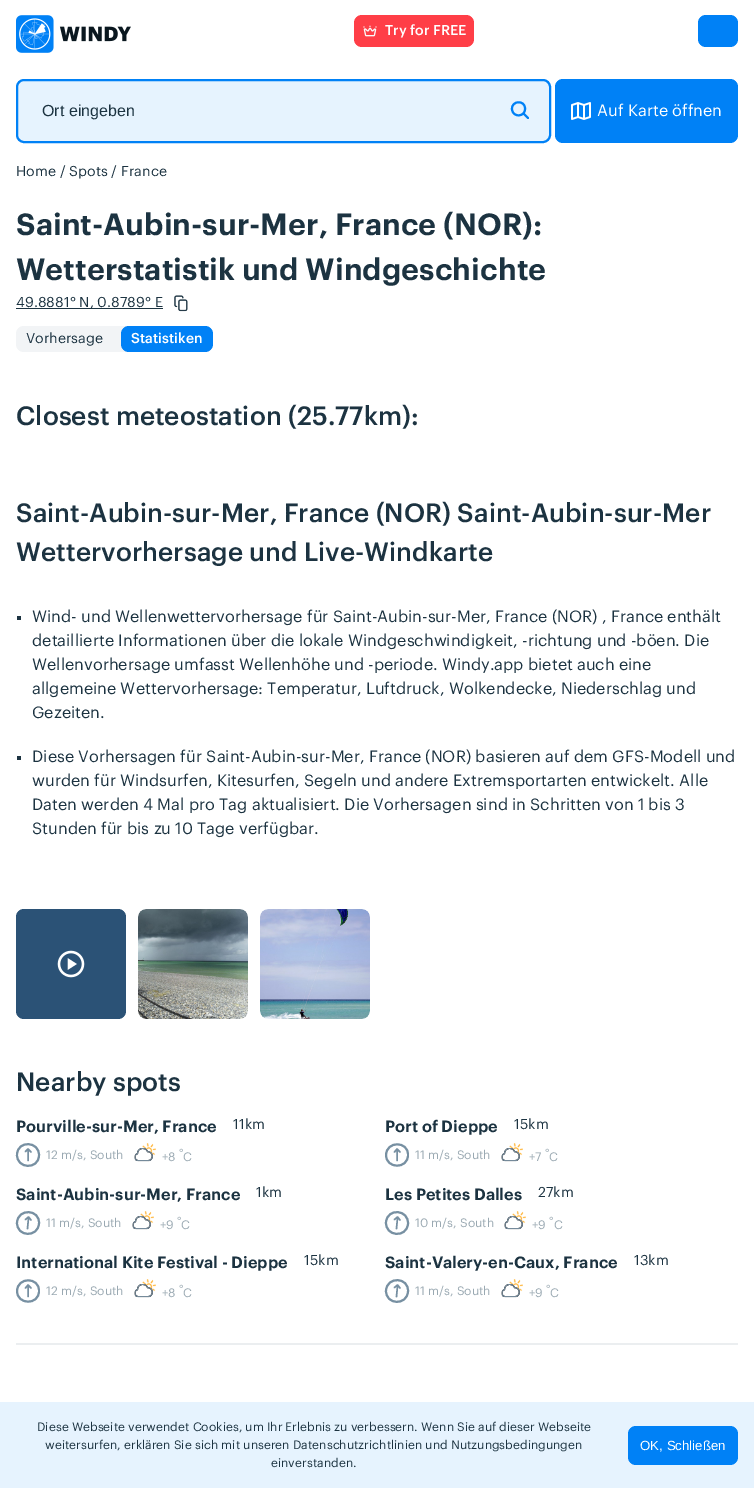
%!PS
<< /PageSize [754 1488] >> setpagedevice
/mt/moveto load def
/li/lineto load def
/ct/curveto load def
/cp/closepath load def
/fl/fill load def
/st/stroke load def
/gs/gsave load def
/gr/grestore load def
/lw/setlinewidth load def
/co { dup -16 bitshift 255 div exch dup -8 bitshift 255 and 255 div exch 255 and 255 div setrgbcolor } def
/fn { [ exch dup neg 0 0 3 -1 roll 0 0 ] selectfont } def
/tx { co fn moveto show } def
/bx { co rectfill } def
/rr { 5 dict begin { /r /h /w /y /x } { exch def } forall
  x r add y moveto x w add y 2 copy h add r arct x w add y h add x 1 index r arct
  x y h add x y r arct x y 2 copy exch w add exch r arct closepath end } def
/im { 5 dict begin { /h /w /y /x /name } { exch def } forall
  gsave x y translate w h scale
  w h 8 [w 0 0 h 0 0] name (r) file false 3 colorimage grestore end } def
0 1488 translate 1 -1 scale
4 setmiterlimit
0 0 754 1488 16#FFFFFF bx
(media/1.raw) 16 15 115 38 im
16#FF3E47 co
354 15 120 32 8 rr fl
(media/2.raw) 363 25 14 12 im
16#0081F6 co
698 15 40 32 8 rr fl
16#E6F3FE co
17 80 533 62 7 rr gs fl gr
16#0081F6 co
2 lw
st
1 setlinecap
1 setlinejoin
523.5 113.5 mt 528 118 li 525 108.5 mt 525.5 117 513 118 512 109.5 ct 511 100.5 525 99.5 525 108.5 ct st
555 79 183 64 8 rr fl
(media/3.raw) 571 102 20 18 im
16 308 147 1 16#1C3341 bx
(media/4.raw) 174 295 14 17 im
16#F2F4F6 co
16 326 197 26 8 rr fl
16#0081F6 co
121 326 92 26 8 rr fl
17 616 4 4 16#1C3341 bx
17 756 4 4 16#1C3341 bx
16#2B5276 co
16 909 110 110 8 rr fl
(media/5.raw) 57 950 28 28 im
(media/6.raw) 138 909 110 110 im
(media/7.raw) 260 909 110 110 im
gs
16.5 1143 mt 40.5 1144 li 39.5 1167.5 li 15.5 1167 li cp clip newpath
16.5 1143 mt 40.5 1144 li 39.5 1167.5 li 15.5 1167 li cp clip newpath
16#7790A2 co
0 setlinecap
0 setlinejoin
39 1155.5 mt 38.5 1170 16.5 1169 17 1154.5 ct 17.5 1140 39.5 1141 39 1155.5 ct cp st
gr
16#7790A2 co
1.5 lw
28 1160.5 mt 28 1150 li 31 1152 mt 28 1149 li 25.5 1151.5 li st
(media/8.raw) 134 1143 22 19 im
gs
385 1143 mt 409 1143.5 li 409 1167.5 li 385 1167 li cp clip newpath
385 1143 mt 409 1143.5 li 409 1167.5 li 385 1167 li cp clip newpath
2 lw
0 setlinecap
0 setlinejoin
408 1155 mt 408 1169.5 386 1169 386 1155 ct 386.5 1140.5 408.5 1141 408 1155 ct cp st
gr
397 1160.5 mt 397 1150 li 400 1152 mt 397 1149 li 394.5 1152 li st
(media/9.raw) 501 1143 22 19 im
gs
16.5 1210.5 mt 40.5 1212 li 39.5 1236 li 15.5 1234.5 li cp clip newpath
16.5 1210.5 mt 40.5 1212 li 39.5 1236 li 15.5 1234.5 li cp clip newpath
2 lw
0 setlinecap
0 setlinejoin
39 1223.5 mt 38 1238 16.5 1237 17 1222.5 ct 18 1208 40 1209 39 1223.5 ct cp st
gr
27.5 1228.5 mt 28.5 1218 li 31 1220 mt 28.5 1217 li 25.5 1219.5 li st
(media/8.raw) 132 1211 22 19 im
gs
386 1210.5 mt 410 1212.5 li 408 1236.5 li 384 1234 li cp clip newpath
386 1210.5 mt 410 1212.5 li 408 1236.5 li 384 1234 li cp clip newpath
2 lw
0 setlinecap
0 setlinejoin
408 1224 mt 406.5 1238.5 385 1236.5 386 1222 ct 387.5 1207.5 409 1209.5 408 1224 ct cp st
gr
396.5 1228.5 mt 397.5 1218 li 400 1220 mt 397.5 1217 li 394.5 1219.5 li st
(media/10.raw) 504 1211 22 19 im
gs
16 1279 mt 40 1279.5 li 40 1303.5 li 16 1303 li cp clip newpath
16 1279 mt 40 1279.5 li 40 1303.5 li 16 1303 li cp clip newpath
2 lw
0 setlinecap
0 setlinejoin
39 1291 mt 39 1305.5 17 1305 17 1291 ct 17.5 1276.5 39.5 1277 39 1291 ct cp st
gr
28 1296.5 mt 28 1286 li 31 1288 mt 28 1285 li 25.5 1288 li st
(media/8.raw) 134 1279 22 19 im
gs
385.5 1278.5 mt 409.5 1280 li 408.5 1304 li 384.5 1302.5 li cp clip newpath
385.5 1278.5 mt 409.5 1280 li 408.5 1304 li 384.5 1302.5 li cp clip newpath
2 lw
0 setlinecap
0 setlinejoin
408 1291.5 mt 407 1306 385.5 1305 386 1290.5 ct 387 1276 409 1277 408 1291.5 ct cp st
gr
396.5 1296.5 mt 397.5 1286 li 400 1288 mt 397.5 1285 li 394.5 1287.5 li st
(media/9.raw) 501 1279 22 19 im
16 1343 722 2 16#EBEEF0 bx
0 1402 754 86 16#E6F3FE bx
16#0081F6 co
628 1426 110 39 8 rr fl
(Try for FREE) 385 35 /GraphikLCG-Medium 14 16#FFFFFF tx
(Ort eingeben) 42 116 /LiberationSans-Regular 16 16#1C3341 tx
(Auf Karte öffnen) 597 116 /GraphikLCG-Regular 16 16#FFFFFF tx
(Home / Spots / France) 16 176 /GraphikLCG-Regular 14 16#1C3341 tx
(Saint-Aubin-sur-Mer, France \(NOR\):) 16 235 /GraphikLCG-SemiBold 30 16#1C3341 tx
(Wetterstatistik und Windgeschichte) 16 280 /GraphikLCG-SemiBold 30 16#1C3341 tx
(49.8881° N, 0.8789° E) 16 307 /GraphikLCG-Regular 14 16#1C3341 tx
(Vorhersage) 26 343 /GraphikLCG-Regular 14 16#1C3341 tx
(Statistiken) 131 343 /GraphikLCG-Medium 14 16#FFFFFF tx
(Closest meteostation \(25.77km\):) 16 425 /GraphikLCG-Medium 26 16#1C3341 tx
(Saint-Aubin-sur-Mer, France \(NOR\) Saint-Aubin-sur-Mer) 16 522 /GraphikLCG-Medium 26 16#1C3341 tx
(Wettervorhersage und Live-Windkarte) 16 561 /GraphikLCG-Medium 26 16#1C3341 tx
(Wind- und Wellenwettervorhersage für Saint-Aubin-sur-Mer, France \(NOR\) , France enthält) 32 622 /GraphikLCG-Regular 16 16#1C3341 tx
(detaillierte Informationen über die lokale Windgeschwindigkeit, -richtung und -böen. Die) 32 646 /GraphikLCG-Regular 16 16#1C3341 tx
(Wellenvorhersage umfasst Wellenhöhe und -periode. Windy.app bietet auch eine) 32 670 /GraphikLCG-Regular 16 16#1C3341 tx
(allgemeine Wettervorhersage: Temperatur, Luftdruck, Wolkendecke, Niederschlag und) 32 694 /GraphikLCG-Regular 16 16#1C3341 tx
(Gezeiten.) 32 718 /GraphikLCG-Regular 16 16#1C3341 tx
(Diese Vorhersagen für Saint-Aubin-sur-Mer, France \(NOR\) basieren auf dem GFS-Modell und) 32 762 /GraphikLCG-Regular 16 16#1C3341 tx
(wurden für Windsurfen, Kitesurfen, Segeln und andere Extremsportarten entwickelt. Alle) 32 786 /GraphikLCG-Regular 16 16#1C3341 tx
(Daten werden 4 Mal pro Tag aktualisiert. Die Vorhersagen sind in Schritten von 1 bis 3) 32 810 /GraphikLCG-Regular 16 16#1C3341 tx
(Stunden für bis zu 10 Tage verfügbar.) 32 834 /GraphikLCG-Regular 16 16#1C3341 tx
(Nearby spots) 16 1091 /GraphikLCG-Medium 26 16#1C3341 tx
(Pourville-sur-Mer, France) 16 1132 /GraphikLCG-SemiBold 16 16#1C3341 tx
(11km) 233 1129 /GraphikLCG-Regular 14 16#1C3341 tx
(12 m/s, South) 46 1159 /GraphikLCG-Regular 12 16#9AA9B2 tx
(°) 179 1156 /GraphikLCG-Regular 10 16#9AA9B2 tx
(+8) 162 1161 /GraphikLCG-Regular 12 16#9AA9B2 tx
(C) 183 1161 /GraphikLCG-Regular 12 16#9AA9B2 tx
(Port of Dieppe) 385 1132 /GraphikLCG-SemiBold 16 16#1C3341 tx
(15km) 514 1129 /GraphikLCG-Regular 14 16#1C3341 tx
(11 m/s, South) 415 1159 /GraphikLCG-Regular 12 16#9AA9B2 tx
(°) 545 1156 /GraphikLCG-Regular 10 16#9AA9B2 tx
(+7) 529 1161 /GraphikLCG-Regular 12 16#9AA9B2 tx
(C) 549 1161 /GraphikLCG-Regular 12 16#9AA9B2 tx
(Saint-Aubin-sur-Mer, France) 16 1200 /GraphikLCG-SemiBold 16 16#1C3341 tx
(1km) 256 1197 /GraphikLCG-Regular 14 16#1C3341 tx
(11 m/s, South) 46 1227 /GraphikLCG-Regular 12 16#9AA9B2 tx
(°) 177 1224 /GraphikLCG-Regular 10 16#9AA9B2 tx
(+9) 160 1229 /GraphikLCG-Regular 12 16#9AA9B2 tx
(C) 181 1229 /GraphikLCG-Regular 12 16#9AA9B2 tx
(Les Petites Dalles) 385 1200 /GraphikLCG-SemiBold 16 16#1C3341 tx
(27km) 538 1197 /GraphikLCG-Regular 14 16#1C3341 tx
(10 m/s, South) 415 1227 /GraphikLCG-Regular 12 16#9AA9B2 tx
(°) 549 1224 /GraphikLCG-Regular 10 16#9AA9B2 tx
(+9) 532 1229 /GraphikLCG-Regular 12 16#9AA9B2 tx
(C) 554 1229 /GraphikLCG-Regular 12 16#9AA9B2 tx
(International Kite Festival - Dieppe) 16 1268 /GraphikLCG-SemiBold 16 16#1C3341 tx
(15km) 304 1265 /GraphikLCG-Regular 14 16#1C3341 tx
(12 m/s, South) 46 1295 /GraphikLCG-Regular 12 16#9AA9B2 tx
(°) 179 1292 /GraphikLCG-Regular 10 16#9AA9B2 tx
(+8) 162 1297 /GraphikLCG-Regular 12 16#9AA9B2 tx
(C) 183 1297 /GraphikLCG-Regular 12 16#9AA9B2 tx
(Saint-Valery-en-Caux, France) 385 1268 /GraphikLCG-SemiBold 16 16#1C3341 tx
(13km) 634 1265 /GraphikLCG-Regular 14 16#1C3341 tx
(11 m/s, South) 415 1295 /GraphikLCG-Regular 12 16#9AA9B2 tx
(°) 546 1292 /GraphikLCG-Regular 10 16#9AA9B2 tx
(+9) 529 1297 /GraphikLCG-Regular 12 16#9AA9B2 tx
(C) 550 1297 /GraphikLCG-Regular 12 16#9AA9B2 tx
(Diese Webseite verwendet Cookies, um Ihr Erlebnis zu verbessern. Wenn Sie auf dieser Webseite) 37 1431 /GraphikLCG-Regular 12 16#1C3341 tx
(weitersurfen, erklären Sie sich mit unseren Datenschutzrichtlinien und Nutzungsbedingungen) 45 1449 /GraphikLCG-Regular 12 16#1C3341 tx
(einverstanden.) 271 1467 /GraphikLCG-Regular 12 16#1C3341 tx
(OK, Schließen) 640 1450 /LiberationSans-Regular 13.25 16#FFFFFF tx
showpage
